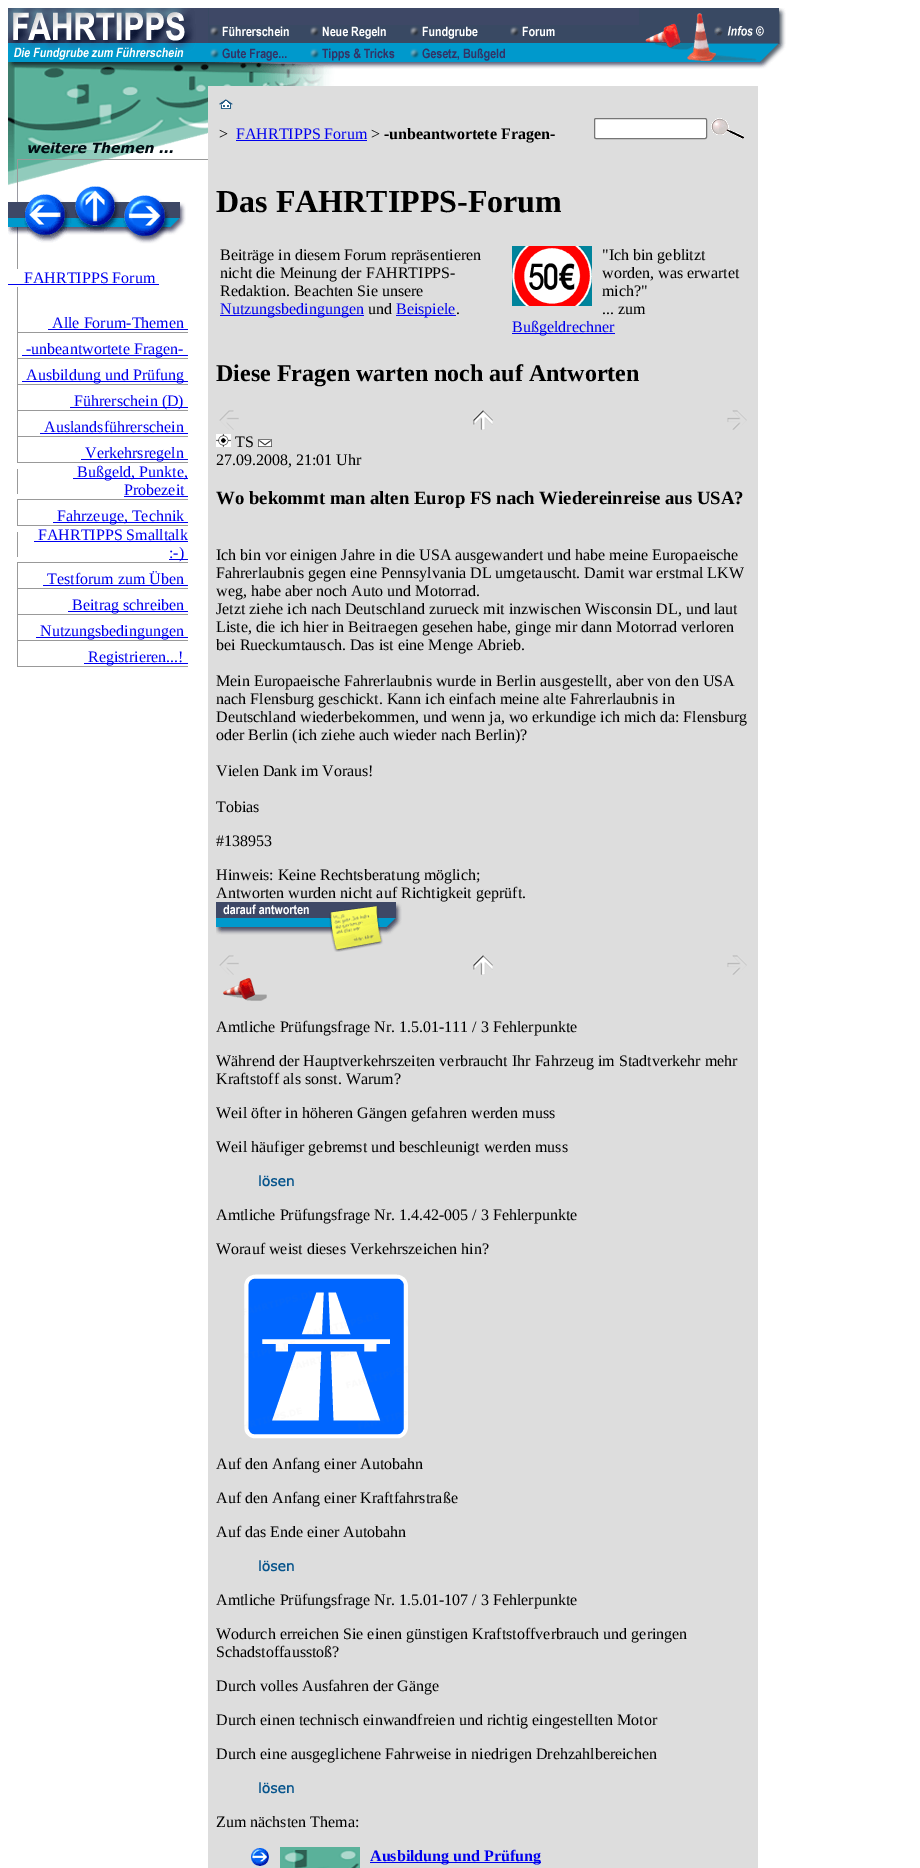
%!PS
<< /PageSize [920 1868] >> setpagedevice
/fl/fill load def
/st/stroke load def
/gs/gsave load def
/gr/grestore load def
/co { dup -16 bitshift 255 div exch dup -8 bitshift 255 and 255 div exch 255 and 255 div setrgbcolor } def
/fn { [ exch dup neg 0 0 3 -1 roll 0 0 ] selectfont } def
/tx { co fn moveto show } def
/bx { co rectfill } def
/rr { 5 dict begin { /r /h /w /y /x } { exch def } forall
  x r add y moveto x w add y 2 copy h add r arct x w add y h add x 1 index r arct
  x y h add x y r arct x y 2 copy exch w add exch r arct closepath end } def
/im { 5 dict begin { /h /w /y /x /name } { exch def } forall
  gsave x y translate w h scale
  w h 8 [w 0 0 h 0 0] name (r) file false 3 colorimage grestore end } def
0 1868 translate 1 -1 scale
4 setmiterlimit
0 0 920 1868 16#FFFFFF bx
(media/1.raw) 8 8 200 54 im
209 8 430 17 16#3E4866 bx
208 8 1 35 16#394963 bx
(media/2.raw) 209 25 100 18 im
(media/3.raw) 309 25 100 18 im
(media/4.raw) 409 25 100 18 im
(media/5.raw) 509 25 100 18 im
609 25 30 18 16#394963 bx
208 43 431 19 16#0099CC bx
(media/6.raw) 210 48 77 13 im
(media/7.raw) 310 48 85 13 im
(media/8.raw) 410 48 95 13 im
(media/9.raw) 639 8 147 54 im
(media/10.raw) 8 62 763 24 im
(media/11.raw) 8 86 200 100 im
(media/12.raw) 8 186 62 58 im
(media/13.raw) 70 186 50 49 im
(media/14.raw) 120 195 66 49 im
17 244 1 25 16#999999 bx
8 284 151 1 16#0000EE bx
17 287 1 45 16#999999 bx
48 329 140 1 16#0000EE bx
17 332 171 1 16#999999 bx
17 333 1 25 16#999999 bx
22 355 166 1 16#0000EE bx
17 358 171 1 16#999999 bx
17 359 1 25 16#999999 bx
22 381 166 1 16#0000EE bx
17 384 171 1 16#999999 bx
17 385 1 25 16#999999 bx
70 407 118 1 16#0000EE bx
17 410 171 1 16#999999 bx
17 411 1 25 16#999999 bx
40 433 148 1 16#0000EE bx
17 436 171 1 16#999999 bx
17 437 1 25 16#999999 bx
81 459 107 1 16#0000EE bx
17 462 171 1 16#999999 bx
17 469 1 25 16#999999 bx
73 478 115 1 16#0000EE bx
124 496 64 1 16#0000EE bx
17 499 171 1 16#999999 bx
17 500 1 25 16#999999 bx
53 522 135 1 16#0000EE bx
17 525 171 1 16#999999 bx
17 532 1 25 16#999999 bx
34 541 154 1 16#0000EE bx
169 559 19 1 16#0000EE bx
17 562 171 1 16#999999 bx
17 563 1 25 16#999999 bx
43 585 145 1 16#0000EE bx
17 588 171 1 16#999999 bx
17 589 1 25 16#999999 bx
68 611 120 1 16#0000EE bx
17 614 171 1 16#999999 bx
17 615 1 25 16#999999 bx
36 637 152 1 16#0000EE bx
17 640 171 1 16#999999 bx
17 641 1 25 16#999999 bx
84 663 104 1 16#0000EE bx
17 666 171 1 16#999999 bx
208 86 550 1782 16#DDDDDD bx
(media/15.raw) 219 99 14 10 im
236 140 131 1 16#0000EE bx
16#FFFFFF co
594.5 118.5 112 20 1.5 rr gs fl gr
16#767676 co
st
(media/16.raw) 711 118 33 21 im
220 315 144 1 16#0000EE bx
396 315 60 1 16#0000EE bx
(media/17.raw) 512 246 80 60 im
512 333 103 1 16#0000EE bx
(media/18.raw) 219 410 20 20 im
(media/19.raw) 473 410 20 20 im
(media/20.raw) 727 410 20 20 im
(media/21.raw) 216 434 15 13 im
(media/22.raw) 258 439 14 8 im
(media/23.raw) 216 902 186 50 im
(media/18.raw) 219 955 20 20 im
(media/19.raw) 473 955 20 20 im
(media/20.raw) 727 955 20 20 im
(media/24.raw) 223 978 44 23 im
(media/25.raw) 259 1175 35 12 im
(media/26.raw) 244 1274 164 165 im
(media/25.raw) 259 1560 35 12 im
(media/25.raw) 259 1782 35 12 im
(media/27.raw) 251 1848 18 18 im
(media/28.raw) 280 1847 80 21 im
370 1862 171 1 16#0000EE bx
(FAHRTIPPS Forum) 24 283 /LiberationSerif-Regular 16 16#0000EE tx
(Alle Forum-Themen) 52 328 /LiberationSerif-Regular 16 16#0000EE tx
(-unbeantwortete Fragen-) 26 354 /LiberationSerif-Regular 16 16#0000EE tx
(Ausbildung und Prüfung) 26 380 /LiberationSerif-Regular 16 16#0000EE tx
(Führerschein \(D\)) 74 406 /LiberationSerif-Regular 16 16#0000EE tx
(Auslandsführerschein) 44 432 /LiberationSerif-Regular 16 16#0000EE tx
(Verkehrsregeln) 85 458 /LiberationSerif-Regular 16 16#0000EE tx
(Bußgeld, Punkte,) 77 477 /LiberationSerif-Regular 16 16#0000EE tx
(Probezeit) 124 495 /LiberationSerif-Regular 16 16#0000EE tx
(Fahrzeuge, Technik) 57 521 /LiberationSerif-Regular 16 16#0000EE tx
(FAHRTIPPS Smalltalk) 38 540 /LiberationSerif-Regular 16 16#0000EE tx
(:-\)) 169 558 /LiberationSerif-Regular 16 16#0000EE tx
(Testforum zum Üben) 47 584 /LiberationSerif-Regular 16 16#0000EE tx
(Beitrag schreiben) 72 610 /LiberationSerif-Regular 16 16#0000EE tx
(Nutzungsbedingungen) 40 636 /LiberationSerif-Regular 16 16#0000EE tx
(Registrieren...!) 88 662 /LiberationSerif-Regular 16 16#0000EE tx
(>) 219 139 /LiberationSerif-Regular 16 16#000000 tx
(FAHRTIPPS Forum) 236 139 /LiberationSerif-Regular 16 16#0000EE tx
(>) 371 139 /LiberationSerif-Regular 16 16#000000 tx
(-unbeantwortete Fragen-) 384 139 /LiberationSerif-Bold 16 16#000000 tx
(Das FAHRTIPPS-Forum) 216 212 /LiberationSerif-Bold 32 16#000000 tx
(Beiträge in diesem Forum repräsentieren) 220 260 /LiberationSerif-Regular 16 16#000000 tx
(nicht die Meinung der FAHRTIPPS-) 220 278 /LiberationSerif-Regular 16 16#000000 tx
(Redaktion. Beachten Sie unsere) 220 296 /LiberationSerif-Regular 16 16#000000 tx
(Nutzungsbedingungen) 220 314 /LiberationSerif-Regular 16 16#0000EE tx
(und) 368 314 /LiberationSerif-Regular 16 16#000000 tx
(Beispiele) 396 314 /LiberationSerif-Regular 16 16#0000EE tx
(.) 456 314 /LiberationSerif-Regular 16 16#000000 tx
("Ich bin geblitzt) 602 260 /LiberationSerif-Regular 16 16#000000 tx
(worden, was erwartet) 602 278 /LiberationSerif-Regular 16 16#000000 tx
(mich?") 602 296 /LiberationSerif-Regular 16 16#000000 tx
(... zum) 602 314 /LiberationSerif-Regular 16 16#000000 tx
(Bußgeldrechner) 512 332 /LiberationSerif-Regular 16 16#0000EE tx
(Diese Fragen warten noch auf Antworten) 216 381 /LiberationSerif-Bold 24 16#000000 tx
(TS) 235 447 /LiberationSerif-Regular 16 16#000000 tx
(27.09.2008, 21:01 Uhr) 216 465 /LiberationSerif-Regular 16 16#000000 tx
(Wo bekommt man alten Europ FS nach Wiedereinreise aus USA?) 216 504 /LiberationSerif-Bold 18.75 16#000000 tx
(Ich bin vor einigen Jahre in die USA ausgewandert und habe meine Europaeische) 216 560 /LiberationSerif-Regular 16 16#000000 tx
(Fahrerlaubnis gegen eine Pennsylvania DL umgetauscht. Damit war erstmal LKW) 216 578 /LiberationSerif-Regular 16 16#000000 tx
(weg, habe aber noch Auto und Motorrad.) 216 596 /LiberationSerif-Regular 16 16#000000 tx
(Jetzt ziehe ich nach Deutschland zurueck mit inzwischen Wisconsin DL, und laut) 216 614 /LiberationSerif-Regular 16 16#000000 tx
(Liste, die ich hier in Beitraegen gesehen habe, ginge mir dann Motorrad verloren) 216 632 /LiberationSerif-Regular 16 16#000000 tx
(bei Rueckumtausch. Das ist eine Menge Abrieb.) 216 650 /LiberationSerif-Regular 16 16#000000 tx
(Mein Europaeische Fahrerlaubnis wurde in Berlin ausgestellt, aber von den USA) 216 686 /LiberationSerif-Regular 16 16#000000 tx
(nach Flensburg geschickt. Kann ich einfach meine alte Fahrerlaubnis in) 216 704 /LiberationSerif-Regular 16 16#000000 tx
(Deutschland wiederbekommen, und wenn ja, wo erkundige ich mich da: Flensburg) 216 722 /LiberationSerif-Regular 16 16#000000 tx
(oder Berlin \(ich ziehe auch wieder nach Berlin\)?) 216 740 /LiberationSerif-Regular 16 16#000000 tx
(Vielen Dank im Voraus!) 216 776 /LiberationSerif-Regular 16 16#000000 tx
(Tobias) 216 812 /LiberationSerif-Regular 16 16#000000 tx
(#138953) 216 846 /LiberationSerif-Regular 16 16#000000 tx
(Hinweis: Keine Rechtsberatung möglich;) 216 880 /LiberationSerif-Regular 16 16#000000 tx
(Antworten wurden nicht auf Richtigkeit geprüft.) 216 898 /LiberationSerif-Regular 16 16#000000 tx
(Amtliche Prüfungsfrage Nr. 1.5.01-111 / 3 Fehlerpunkte) 216 1032 /LiberationSerif-Regular 16 16#000000 tx
(Während der Hauptverkehrszeiten verbraucht Ihr Fahrzeug im Stadtverkehr mehr) 216 1066 /LiberationSerif-Regular 16 16#000000 tx
(Kraftstoff als sonst. Warum?) 216 1084 /LiberationSerif-Regular 16 16#000000 tx
(Weil öfter in höheren Gängen gefahren werden muss) 216 1118 /LiberationSerif-Regular 16 16#000000 tx
(Weil häufiger gebremst und beschleunigt werden muss) 216 1152 /LiberationSerif-Regular 16 16#000000 tx
(Amtliche Prüfungsfrage Nr. 1.4.42-005 / 3 Fehlerpunkte) 216 1220 /LiberationSerif-Regular 16 16#000000 tx
(Worauf weist dieses Verkehrszeichen hin?) 216 1254 /LiberationSerif-Regular 16 16#000000 tx
(Auf den Anfang einer Autobahn) 216 1469 /LiberationSerif-Regular 16 16#000000 tx
(Auf den Anfang einer Kraftfahrstraße) 216 1503 /LiberationSerif-Regular 16 16#000000 tx
(Auf das Ende einer Autobahn) 216 1537 /LiberationSerif-Regular 16 16#000000 tx
(Amtliche Prüfungsfrage Nr. 1.5.01-107 / 3 Fehlerpunkte) 216 1605 /LiberationSerif-Regular 16 16#000000 tx
(Wodurch erreichen Sie einen günstigen Kraftstoffverbrauch und geringen) 216 1639 /LiberationSerif-Regular 16 16#000000 tx
(Schadstoffausstoß?) 216 1657 /LiberationSerif-Regular 16 16#000000 tx
(Durch volles Ausfahren der Gänge) 216 1691 /LiberationSerif-Regular 16 16#000000 tx
(Durch einen technisch einwandfreien und richtig eingestellten Motor) 216 1725 /LiberationSerif-Regular 16 16#000000 tx
(Durch eine ausgeglichene Fahrweise in niedrigen Drehzahlbereichen) 216 1759 /LiberationSerif-Regular 16 16#000000 tx
(Zum nächsten Thema:) 216 1827 /LiberationSerif-Regular 16 16#000000 tx
(Ausbildung und Prüfung) 370 1861 /LiberationSerif-Bold 16 16#0000EE tx
showpage
